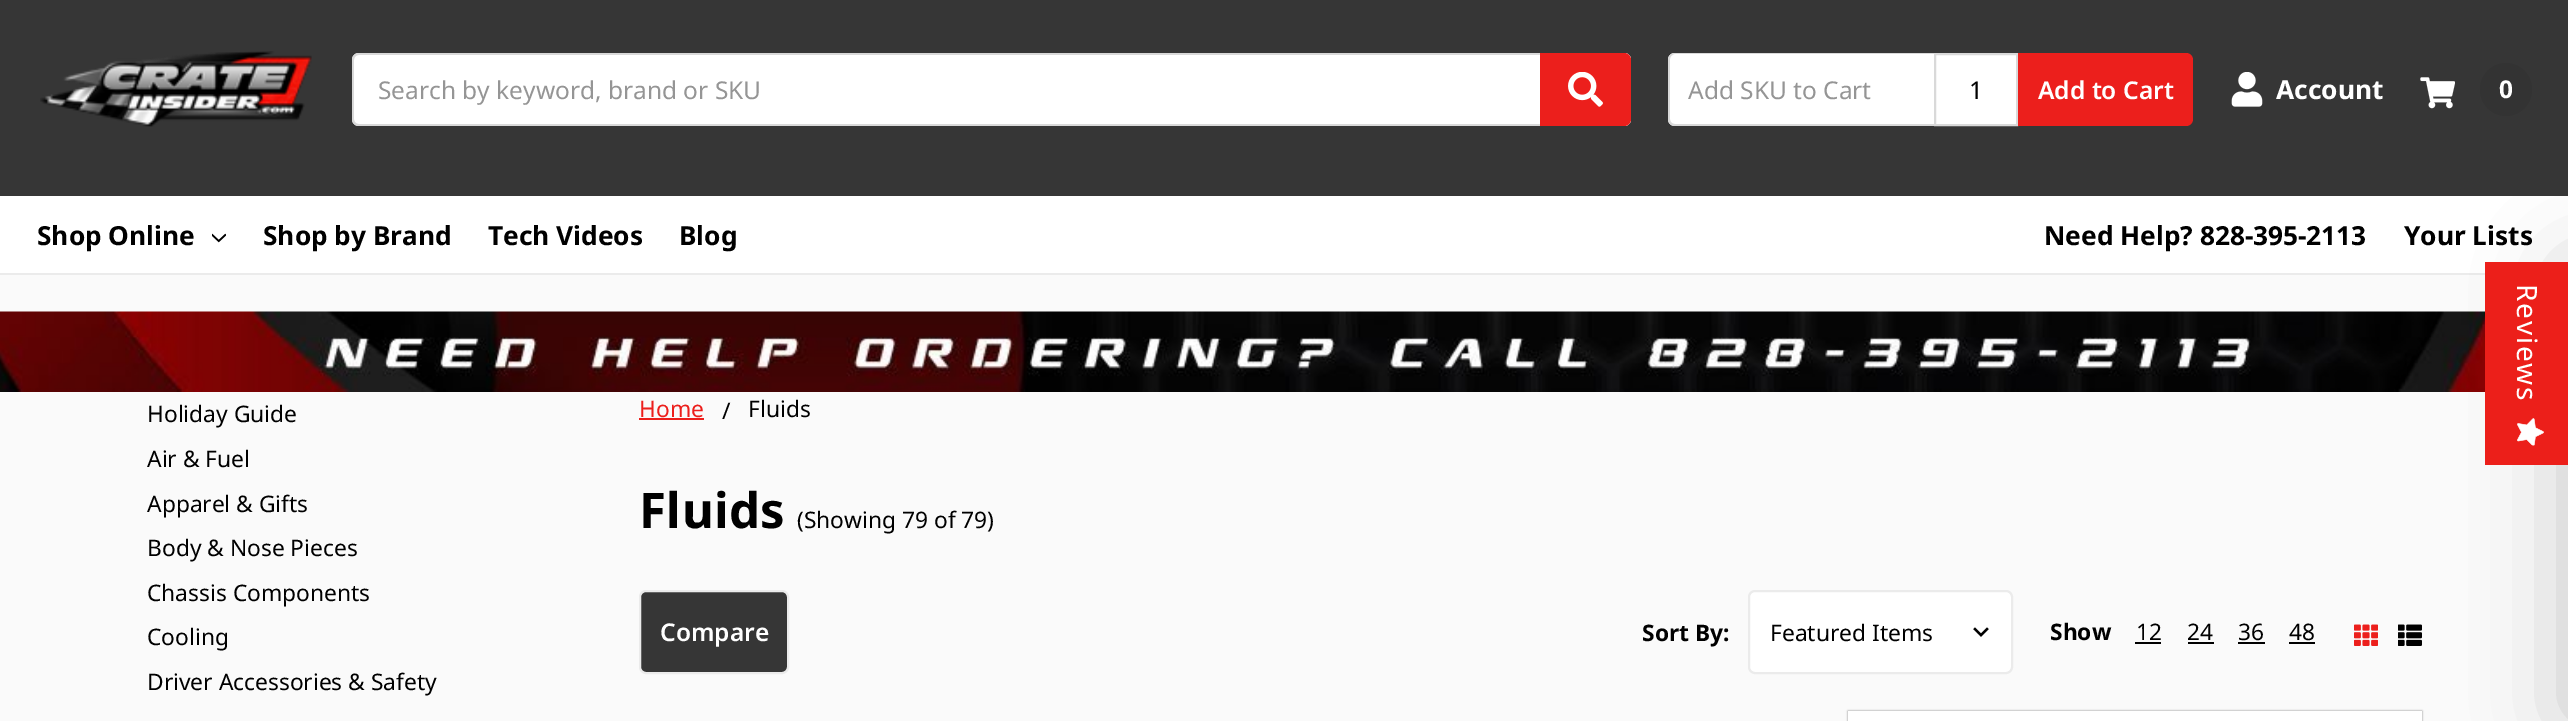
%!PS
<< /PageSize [2568 721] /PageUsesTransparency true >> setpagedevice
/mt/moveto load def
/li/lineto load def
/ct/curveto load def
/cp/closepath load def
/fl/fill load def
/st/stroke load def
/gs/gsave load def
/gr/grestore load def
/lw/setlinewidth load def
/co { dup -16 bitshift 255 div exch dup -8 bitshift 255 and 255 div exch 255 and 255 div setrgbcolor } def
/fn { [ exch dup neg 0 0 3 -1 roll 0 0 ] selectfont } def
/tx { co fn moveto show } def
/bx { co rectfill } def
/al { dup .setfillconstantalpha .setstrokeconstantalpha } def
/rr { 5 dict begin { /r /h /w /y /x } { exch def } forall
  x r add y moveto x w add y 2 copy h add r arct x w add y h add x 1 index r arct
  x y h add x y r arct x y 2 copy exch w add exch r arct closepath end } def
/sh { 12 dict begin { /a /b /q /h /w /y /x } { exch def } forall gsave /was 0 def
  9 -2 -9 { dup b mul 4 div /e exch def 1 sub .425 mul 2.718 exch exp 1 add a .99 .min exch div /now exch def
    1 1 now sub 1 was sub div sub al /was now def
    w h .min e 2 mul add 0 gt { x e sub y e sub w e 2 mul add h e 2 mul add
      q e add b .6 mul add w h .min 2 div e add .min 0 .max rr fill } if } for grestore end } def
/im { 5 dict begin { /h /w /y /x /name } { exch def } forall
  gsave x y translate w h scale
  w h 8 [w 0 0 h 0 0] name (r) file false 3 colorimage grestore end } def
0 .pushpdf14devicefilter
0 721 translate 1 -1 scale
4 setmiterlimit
0 0 2568 721 16#FAFAFA bx
0 0 2568 196 16#363636 bx
0 273 2485 2 16#EBEBEB bx
(media/1.raw) 40 51 272 76 im
16#FFFFFF co
352 53 1279 73 7 rr fl
16#D9D9D9 co
359 53 mt 355 53 352 56 352 60 ct 352 119 li 352 123 355 126 359 126 ct 1624 126 li 1626 126 1628 125 1629 124 ct 359 124 li 356 124 354 122 354 119 ct 354 60 li 354 57 356 55 359 55 ct 1629 55 li 1628 54 1626 53 1624 53 ct cp 1629 55 mt 1629 124 li 1630 123 1631 121 1631 119 ct 1631 60 li 1631 58 1630 56 1629 55 ct cp eofill
16#EC1F1C co
1540 53 mt 1624 53 li 1628 53 1631 56 1631 60 ct 1631 119 li 1631 123 1628 126 1624 126 ct 1540 126 li cp fl
(media/2.raw) 1568 72 35 35 im
16#FFFFFF co
1675 53 mt 1934 53 li 1934 126 li 1675 126 li 1671 126 1668 123 1668 119 ct 1668 60 li 1668 56 1671 53 1675 53 ct cp fl
16#D9D9D9 co
1675 54 mt 1934 54 li 1934 53 li 1675 53 li 1671 53 1668 56 1668 60 ct 1668 119 li 1668 123 1671 126 1675 126 ct 1934 126 li 1934 124 li 1675 124 li 1672 124 1670 122 1670 119 ct 1670 59 li 1670 57 1672 54 1675 54 ct cp fl
16#FFFFFF co
1935 54 mt 2017 54 li 2017 125 li 1935 125 li cp gs fl gr
16#D9D9D9 co
2 lw
st
16#EC1F1C co
2018 53 mt 2186 53 li 2190 53 2193 56 2193 60 ct 2193 119 li 2193 123 2190 126 2186 126 ct 2018 126 li cp fl
(media/3.raw) 2231 72 32 35 im
(media/4.raw) 2420 77 35 32 im
16#333333 co
2480 63 52 53 26 rr fl
0 196 2568 77 16#FFFFFF bx
(media/5.raw) 212 233 14 10 im
(media/6.raw) 0 311 2485 81 im
16#000000 co
2567 266 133 452 0 44 .2 sh
2485 262 83 203 16#EC1F1A bx
(media/7.raw) 2517 418 27 28 im
639 418 65 2 16#EC1F1C bx
16#363636 co
640 591 148 82 6 rr gs fl gr
16#EBEBEB co
st
16#FFFFFF co
1749 591 263 82 6 rr gs fl gr
16#EBEBEB co
st
(media/8.raw) 1973 627 16 10 im
2135 642 26 2 16#000000 bx
2188 642 26 2 16#000000 bx
2238 642 27 2 16#000000 bx
2289 642 26 2 16#000000 bx
(media/9.raw) 2354 624 24 22 im
(media/10.raw) 2398 624 24 22 im
1848 711 574 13 0 1 .5 sh
1848 711 574 10 16#FFFFFF bx
(Search by keyword, brand or SKU) 378 99 /NotoSans-Regular 24.5 16#959595 tx
(Add SKU to Cart) 1688 99 /NotoSans-Regular 24.5 16#959595 tx
(1) 1969 99 /NotoSans-Regular 24.5 16#000000 tx
(Add to Cart) 2038 99 /NotoSans-SemiBold 24.5 16#FFFFFF tx
(Account) 2276 99 /NotoSans-Bold 26.25 16#FFFFFF tx
(0) 2499 98 /NotoSans-Bold 24.5 16#FFFFFF tx
(Shop Online) 37 245 /NotoSans-Bold 26.25 16#000000 tx
(Shop by Brand) 263 245 /NotoSans-Bold 26.25 16#000000 tx
(Tech Videos) 488 245 /NotoSans-Bold 26.25 16#000000 tx
(Blog) 679 245 /NotoSans-Bold 26.25 16#000000 tx
(Need Help? 828-395-2113) 2044 245 /NotoSans-Bold 26.25 16#000000 tx
(Your Lists) 2404 245 /NotoSans-Bold 26.25 16#000000 tx
/NotoSans-Regular 28 fn
16#FFFFFF co
gs 2517 284 translate 90 rotate 0 0 mt 1.75 0 (Reviews) ashow gr
(Holiday Guide) 147 422 /NotoSans-Regular 22.75 16#000000 tx
(Air & Fuel) 147 467 /NotoSans-Regular 22.75 16#000000 tx
(Apparel & Gifts) 147 512 /NotoSans-Regular 22.75 16#000000 tx
(Body & Nose Pieces) 147 556 /NotoSans-Regular 22.75 16#000000 tx
(Chassis Components) 147 601 /NotoSans-Regular 22.75 16#000000 tx
(Cooling) 147 645 /NotoSans-Regular 22.75 16#000000 tx
(Driver Accessories & Safety) 147 690 /NotoSans-Regular 22.75 16#000000 tx
(Home) 639 417 /NotoSans-Regular 22.75 16#EC1F1C tx
(/) 722 419 /NotoSans-Regular 22.75 16#000000 tx
(Fluids) 748 417 /NotoSans-Regular 22.75 16#000000 tx
/NotoSans-Bold 49 fn
639 528 mt .5 0 (Fluids) ashow
(\(Showing 79 of 79\)) 797 528 /NotoSans-Regular 22.75 16#000000 tx
(Compare) 660 641 /NotoSans-SemiBold 24.5 16#FFFFFF tx
(Sort By:) 1642 641 /NotoSans-Bold 22.75 16#000000 tx
(Featured Items) 1770 641 /NotoSans-Regular 22.75 16#000000 tx
(Show) 2050 640 /NotoSans-Bold 22.75 16#000000 tx
(12) 2136 640 /NotoSans-Regular 22.75 16#000000 tx
(24) 2187 640 /NotoSans-Regular 22.75 16#000000 tx
(36) 2238 640 /NotoSans-Regular 22.75 16#000000 tx
(48) 2289 640 /NotoSans-Regular 22.75 16#000000 tx
.poppdf14devicefilter showpage
